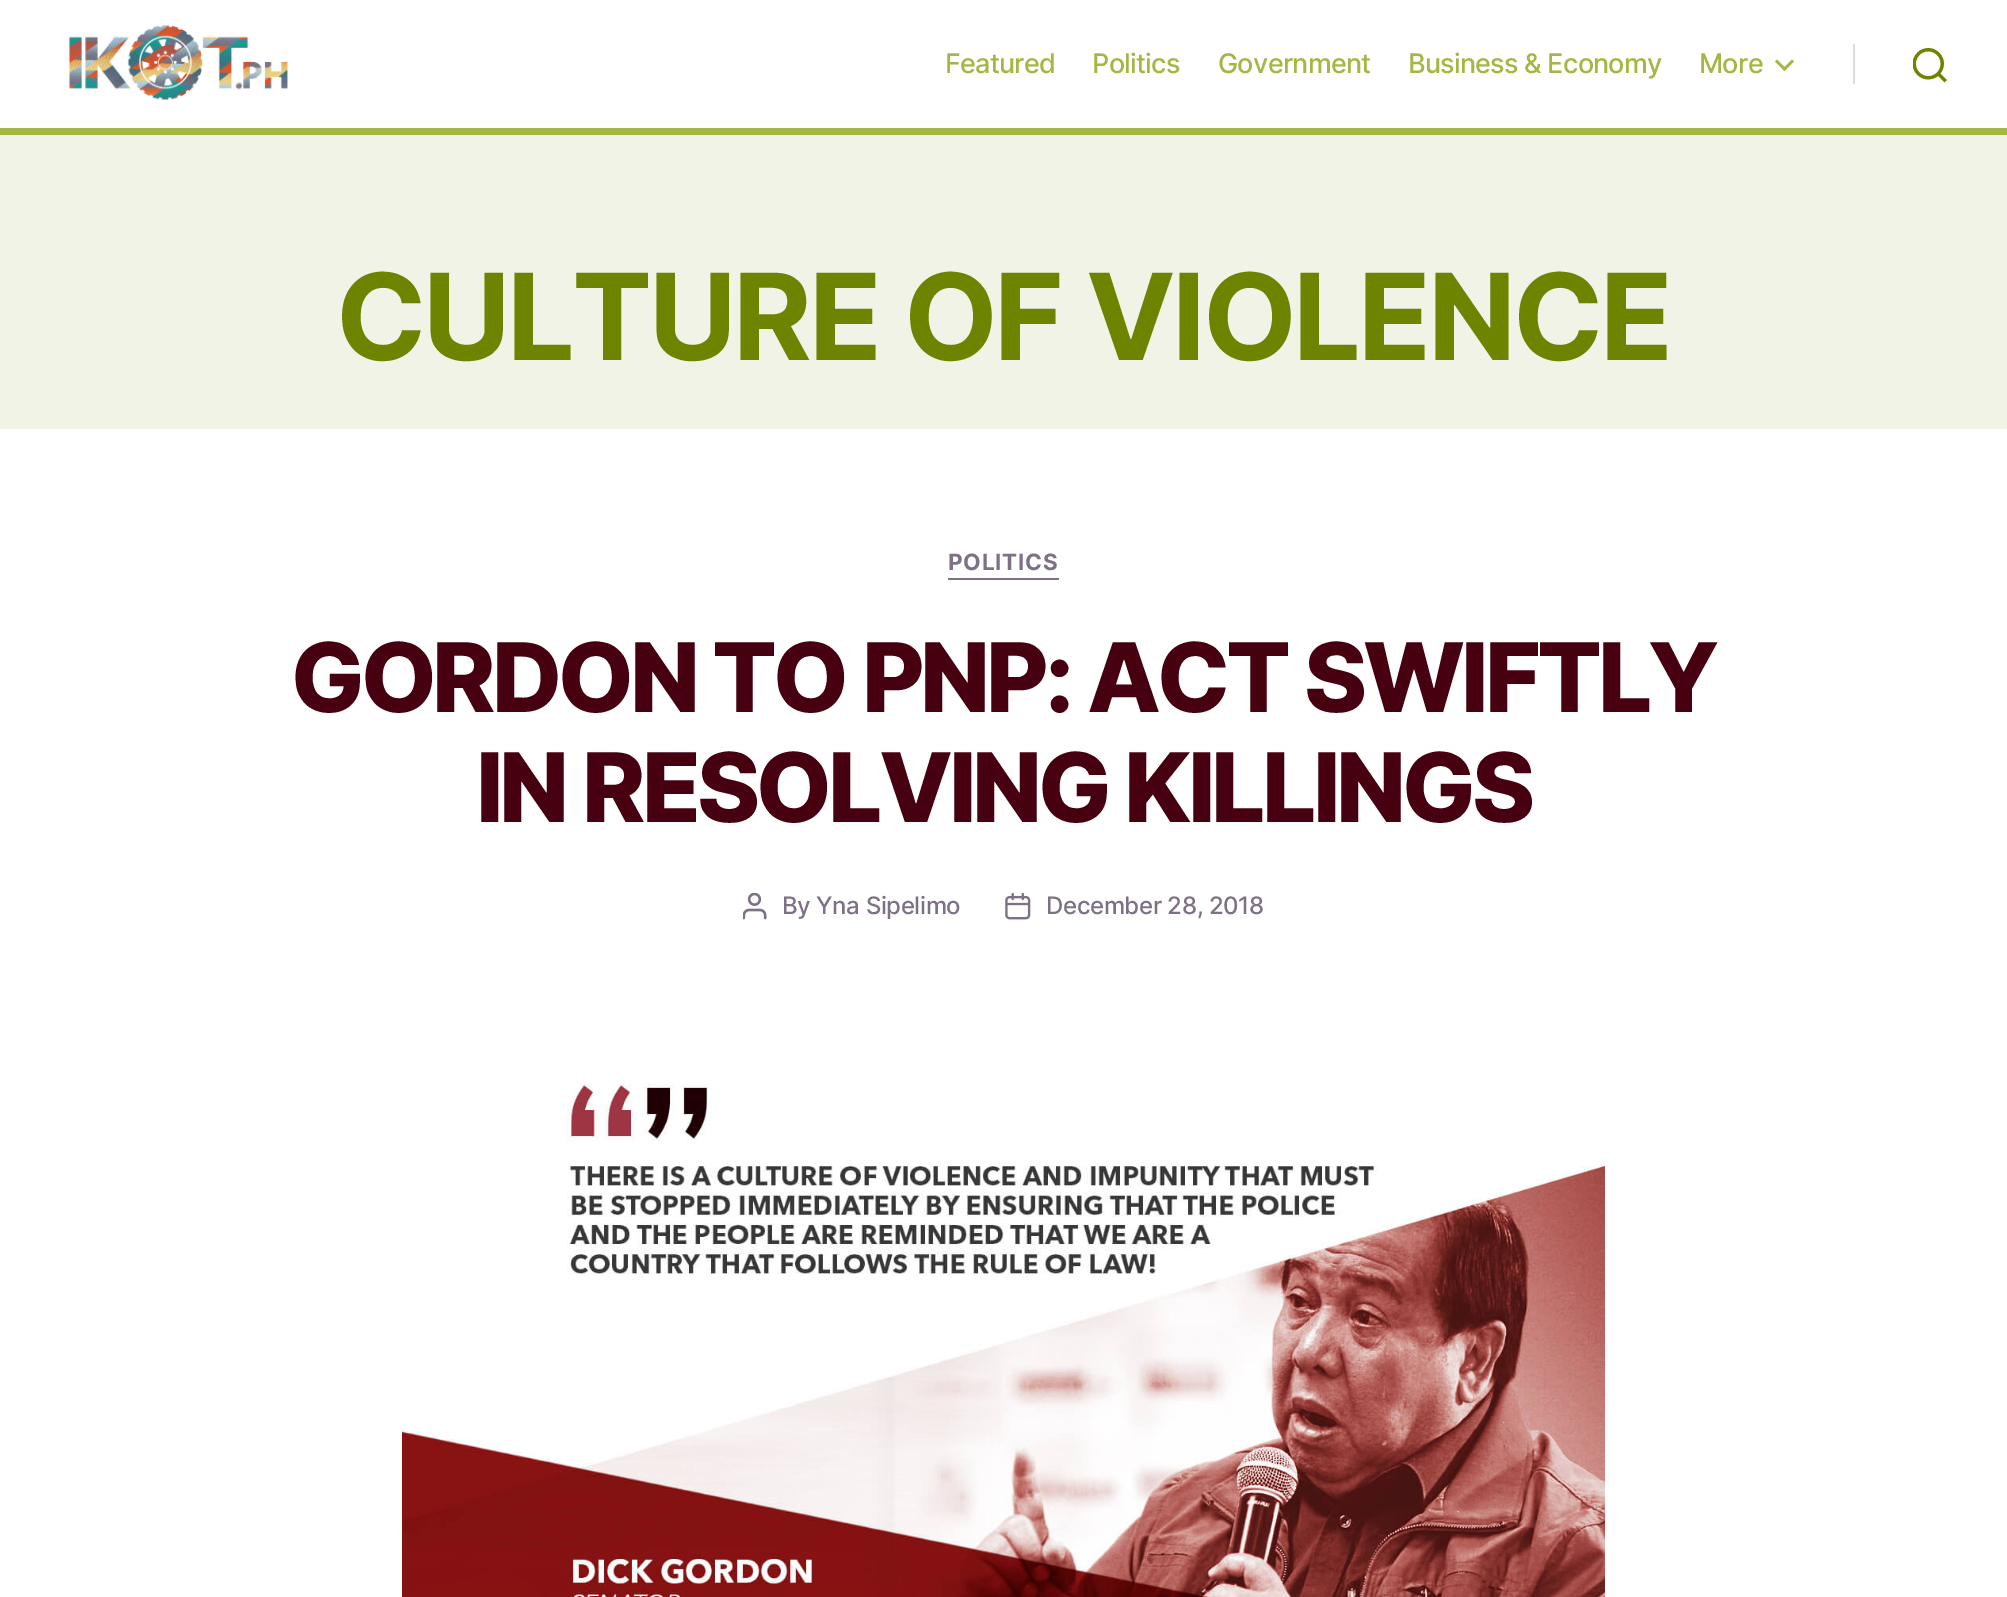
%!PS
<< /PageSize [2007 1597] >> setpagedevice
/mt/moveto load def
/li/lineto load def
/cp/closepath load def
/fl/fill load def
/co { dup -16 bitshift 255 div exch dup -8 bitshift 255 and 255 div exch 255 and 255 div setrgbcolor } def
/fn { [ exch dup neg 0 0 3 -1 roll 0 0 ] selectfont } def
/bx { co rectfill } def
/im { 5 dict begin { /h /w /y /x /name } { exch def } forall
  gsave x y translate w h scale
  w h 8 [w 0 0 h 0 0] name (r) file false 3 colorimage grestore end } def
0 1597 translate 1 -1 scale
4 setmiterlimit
0 0 2007 1597 16#FFFFFF bx
0 128 2007 7 16#A3B744 bx
(media/1.raw) 69 25 219 75 im
1775 61.5 mt 1777 59.5 li 1786.5 69 li 1784.5 71 li cp fl
1782.5 69 mt 1792 59.5 li 1794 61.5 li 1784.5 71 li cp fl
1853 44 2 40 16#DBDBDB bx
(media/2.raw) 1913 48 34 35 im
0 135 2007 294 16#F1F3E7 bx
948 578 111 2 16#7E7185 bx
(media/3.raw) 743 893 24 27 im
(media/4.raw) 1005 893 26 27 im
(media/5.raw) 402 1084 1203 513 im
/Inter-Medium 27 fn
16#A3B744 co
945 73 mt -.75 0 (Featured) ashow
1092 73 mt -.75 0 (Politics) ashow
1218 73 mt -.75 0 (Government) ashow
1408 73 mt -.75 0 (Business & Economy) ashow
1699 73 mt -.75 0 (More) ashow
/Inter-Bold 120 fn
16#6D8400 co
336 360 mt -3.25 0 (CULTURE OF VIOLENCE) ashow
/Inter-Bold 22.5 fn
16#7E7185 co
948 570 mt .75 0 (POLITICS) ashow
/Inter-ExtraBold 96 fn
16#460010 co
291 712 mt -4 0 (GORDON TO PNP: ACT SWIFTLY) ashow
476 822 mt -4 0 (IN RESOLVING KILLINGS) ashow
/Inter-Medium 24 fn
16#7E7185 co
782 914 mt -.4 0 (By Yna Sipelimo) ashow
1046 914 mt -.4 0 (December 28, 2018) ashow
showpage
